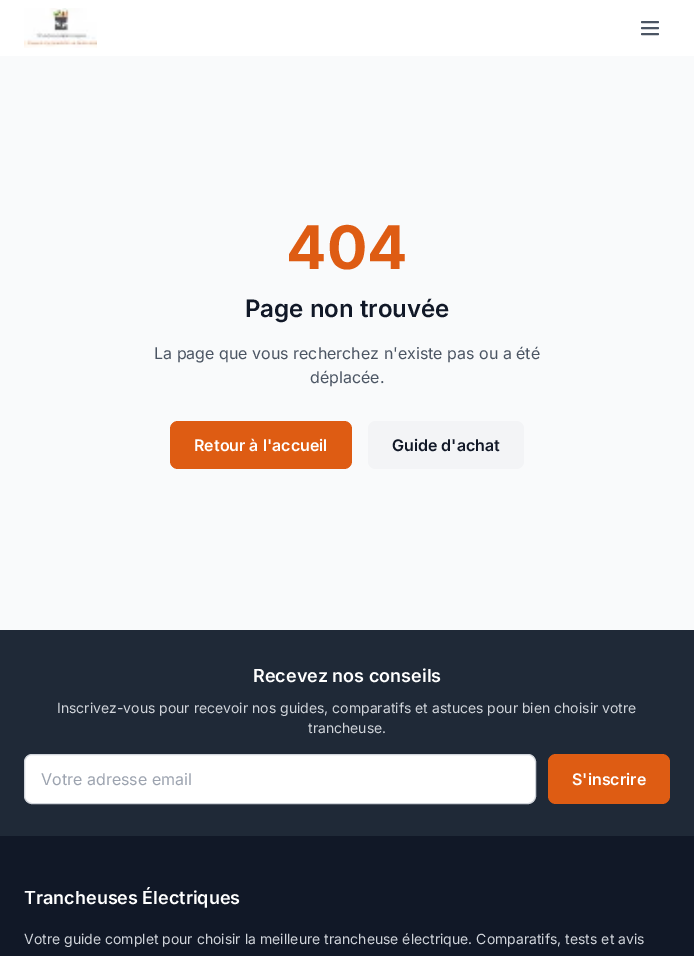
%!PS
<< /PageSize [694 956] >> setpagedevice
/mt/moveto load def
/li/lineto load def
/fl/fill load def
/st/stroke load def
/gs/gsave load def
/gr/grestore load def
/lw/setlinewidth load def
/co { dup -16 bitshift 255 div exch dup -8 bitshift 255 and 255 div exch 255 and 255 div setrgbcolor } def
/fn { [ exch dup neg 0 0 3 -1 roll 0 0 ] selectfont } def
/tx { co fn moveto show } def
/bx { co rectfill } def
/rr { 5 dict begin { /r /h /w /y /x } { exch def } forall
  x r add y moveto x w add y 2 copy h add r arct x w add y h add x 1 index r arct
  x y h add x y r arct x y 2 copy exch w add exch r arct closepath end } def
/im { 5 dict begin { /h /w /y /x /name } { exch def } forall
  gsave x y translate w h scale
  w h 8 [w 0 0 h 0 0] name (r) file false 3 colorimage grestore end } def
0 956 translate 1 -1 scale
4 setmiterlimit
0 0 694 956 16#FFFFFF bx
(media/1.raw) 24 8 73 40 im
16#4B5563 co
2 lw
1 setlinecap
1 setlinejoin
642 22 mt 658 22 li 642 28 mt 658 28 li 642 34 mt 658 34 li st
0 56 694 574 16#F9FAFB bx
16#DE5C13 co
170 421 182 48 8 rr fl
16#F3F4F6 co
368 421 156 48 8 rr fl
0 836 694 120 16#111827 bx
0 630 694 206 16#1F2937 bx
16#FFFFFF co
24.5 754.5 511 49 7.5 rr gs fl gr
16#D1D5DB co
1 lw
0 setlinecap
0 setlinejoin
st
16#DE5C13 co
548 754 122 50 8 rr fl
(404) 286 269 /Inter-Bold 60 16#DE5C13 tx
(Page non trouvée) 245 317 /Inter-SemiBold 24 16#111827 tx
(La page que vous recherchez n'existe pas ou a été) 154 359 /Inter-Regular 16 16#4B5563 tx
(déplacée.) 310 383 /Inter-Regular 16 16#4B5563 tx
(Retour à l'accueil) 194 451 /Inter-SemiBold 16 16#FFFFFF tx
(Guide d'achat) 392 451 /Inter-SemiBold 16 16#111827 tx
(Recevez nos conseils) 253 682 /Inter-SemiBold 18 16#FFFFFF tx
(Inscrivez-vous pour recevoir nos guides, comparatifs et astuces pour bien choisir votre) 57 713 /Inter-Regular 14 16#D1D5DB tx
(trancheuse.) 308 733 /Inter-Regular 14 16#D1D5DB tx
(Votre adresse email) 41 785 /Inter-Regular 16 16#9CA3AF tx
(S'inscrire) 572 785 /Inter-SemiBold 16 16#FFFFFF tx
(Trancheuses Électriques) 24 904 /Inter-SemiBold 18 16#FFFFFF tx
(Votre guide complet pour choisir la meilleure trancheuse électrique. Comparatifs, tests et avis) 24 944 /Inter-Regular 14 16#D1D5DB tx
showpage
